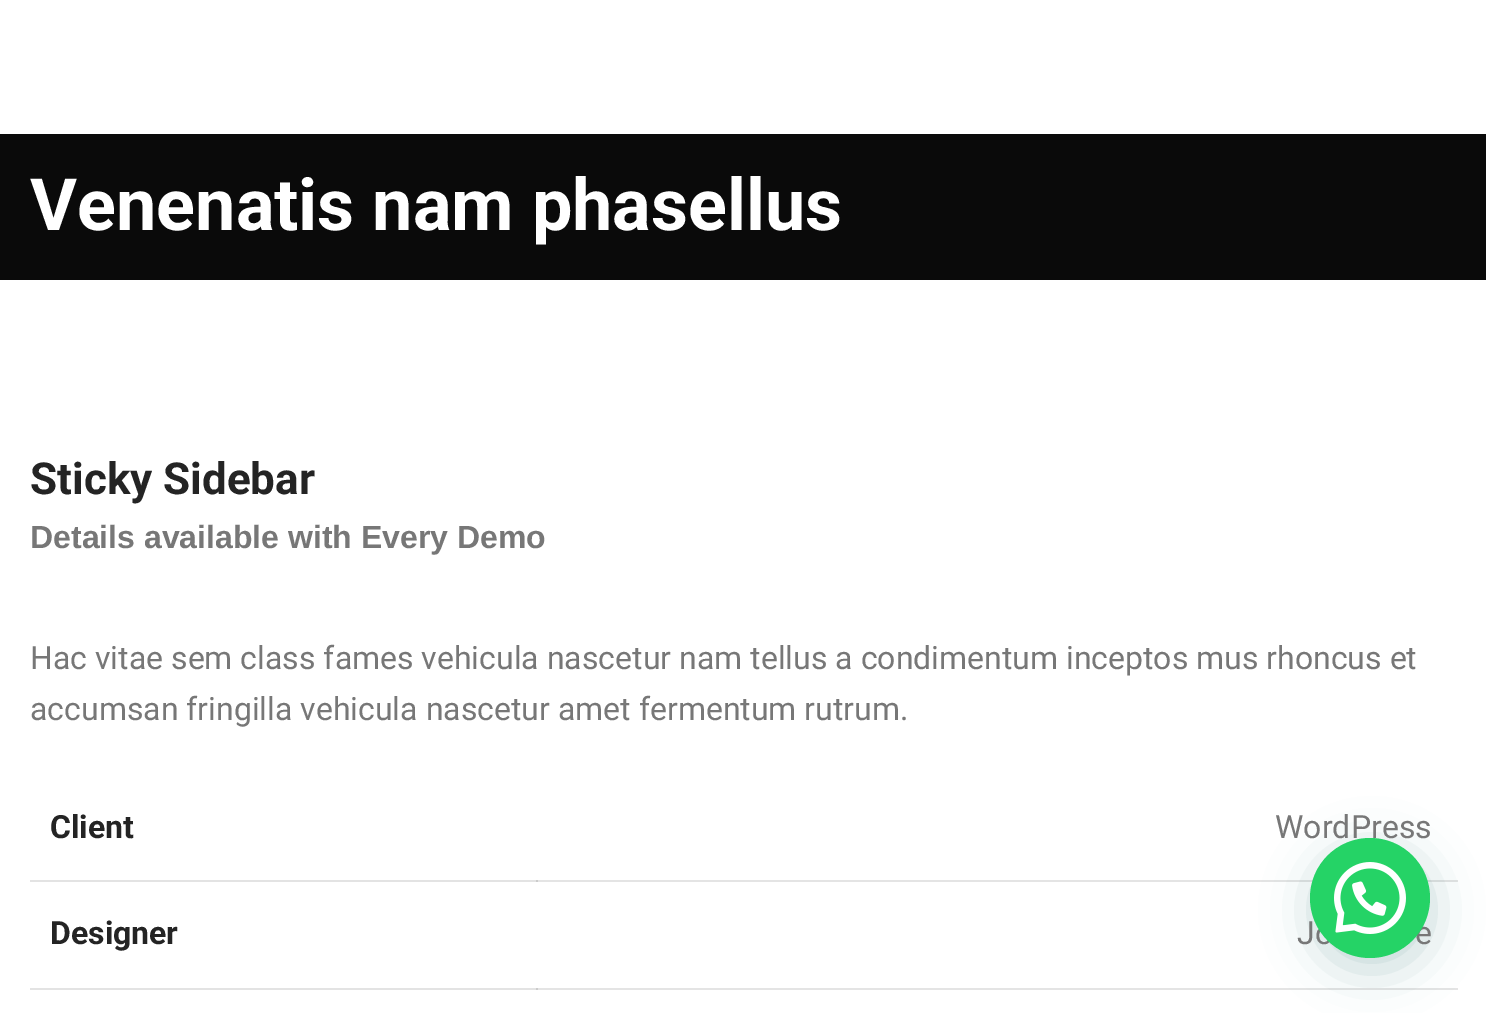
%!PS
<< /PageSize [1486 1013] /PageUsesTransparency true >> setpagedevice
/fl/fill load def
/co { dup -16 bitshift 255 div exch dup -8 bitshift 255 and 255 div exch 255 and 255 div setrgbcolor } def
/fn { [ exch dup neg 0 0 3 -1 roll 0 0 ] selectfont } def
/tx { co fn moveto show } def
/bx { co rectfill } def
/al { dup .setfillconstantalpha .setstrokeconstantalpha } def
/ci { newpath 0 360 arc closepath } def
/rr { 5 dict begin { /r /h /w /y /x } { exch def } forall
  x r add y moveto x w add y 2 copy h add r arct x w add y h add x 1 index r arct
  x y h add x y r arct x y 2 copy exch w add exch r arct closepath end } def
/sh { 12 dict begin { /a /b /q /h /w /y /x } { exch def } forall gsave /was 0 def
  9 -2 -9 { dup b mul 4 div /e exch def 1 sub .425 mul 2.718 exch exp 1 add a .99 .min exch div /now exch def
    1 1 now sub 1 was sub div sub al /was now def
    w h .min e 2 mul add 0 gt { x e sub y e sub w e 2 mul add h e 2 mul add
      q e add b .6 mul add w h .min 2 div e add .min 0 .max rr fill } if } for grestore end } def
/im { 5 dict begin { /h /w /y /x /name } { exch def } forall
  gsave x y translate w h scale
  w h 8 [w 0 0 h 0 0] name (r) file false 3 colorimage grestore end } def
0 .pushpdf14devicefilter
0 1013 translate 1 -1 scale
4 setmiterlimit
0 0 1486 1013 16#FFFFFF bx
30 880 508 2 16#E3E3E3 bx
30 988 508 2 16#E3E3E3 bx
0 134 1486 146 16#0A0A0A bx
536 880 922 2 16#E4E4E4 bx
536 880 2 2 16#CBCBCB bx
536 988 922 2 16#E4E4E4 bx
536 988 2 2 16#CBCBCB bx
16#075E54 co
1312 850 120 120 60 24 .24 sh
(Venenatis nam phasellus) 30 230 /Roboto-Bold 72 16#FFFFFF tx
(Sticky Sidebar) 30 494 /Roboto-Bold 44 16#242424 tx
(Details available with Every Demo) 30 548 /LiberationSans-Bold 32 16#777777 tx
(Hac vitae sem class fames vehicula nascetur nam tellus a condimentum inceptos mus rhoncus et) 30 669 /Roboto-Regular 32 16#777777 tx
(accumsan fringilla vehicula nascetur amet fermentum rutrum.) 30 720 /Roboto-Regular 32 16#777777 tx
(Client) 50 838 /Roboto-Bold 32 16#242424 tx
(WordPress) 1275 838 /Roboto-Regular 32 16#777777 tx
(Designer) 50 944 /Roboto-Bold 32 16#242424 tx
(Jo) 1297 944 /Roboto-Regular 32 16#777777 tx
(e) 1415 944 /Roboto-Regular 32 16#777777 tx
16#25D366 co
1370 898 60 ci fl
(media/1.raw) 1334 862 72 72 im
.poppdf14devicefilter showpage
